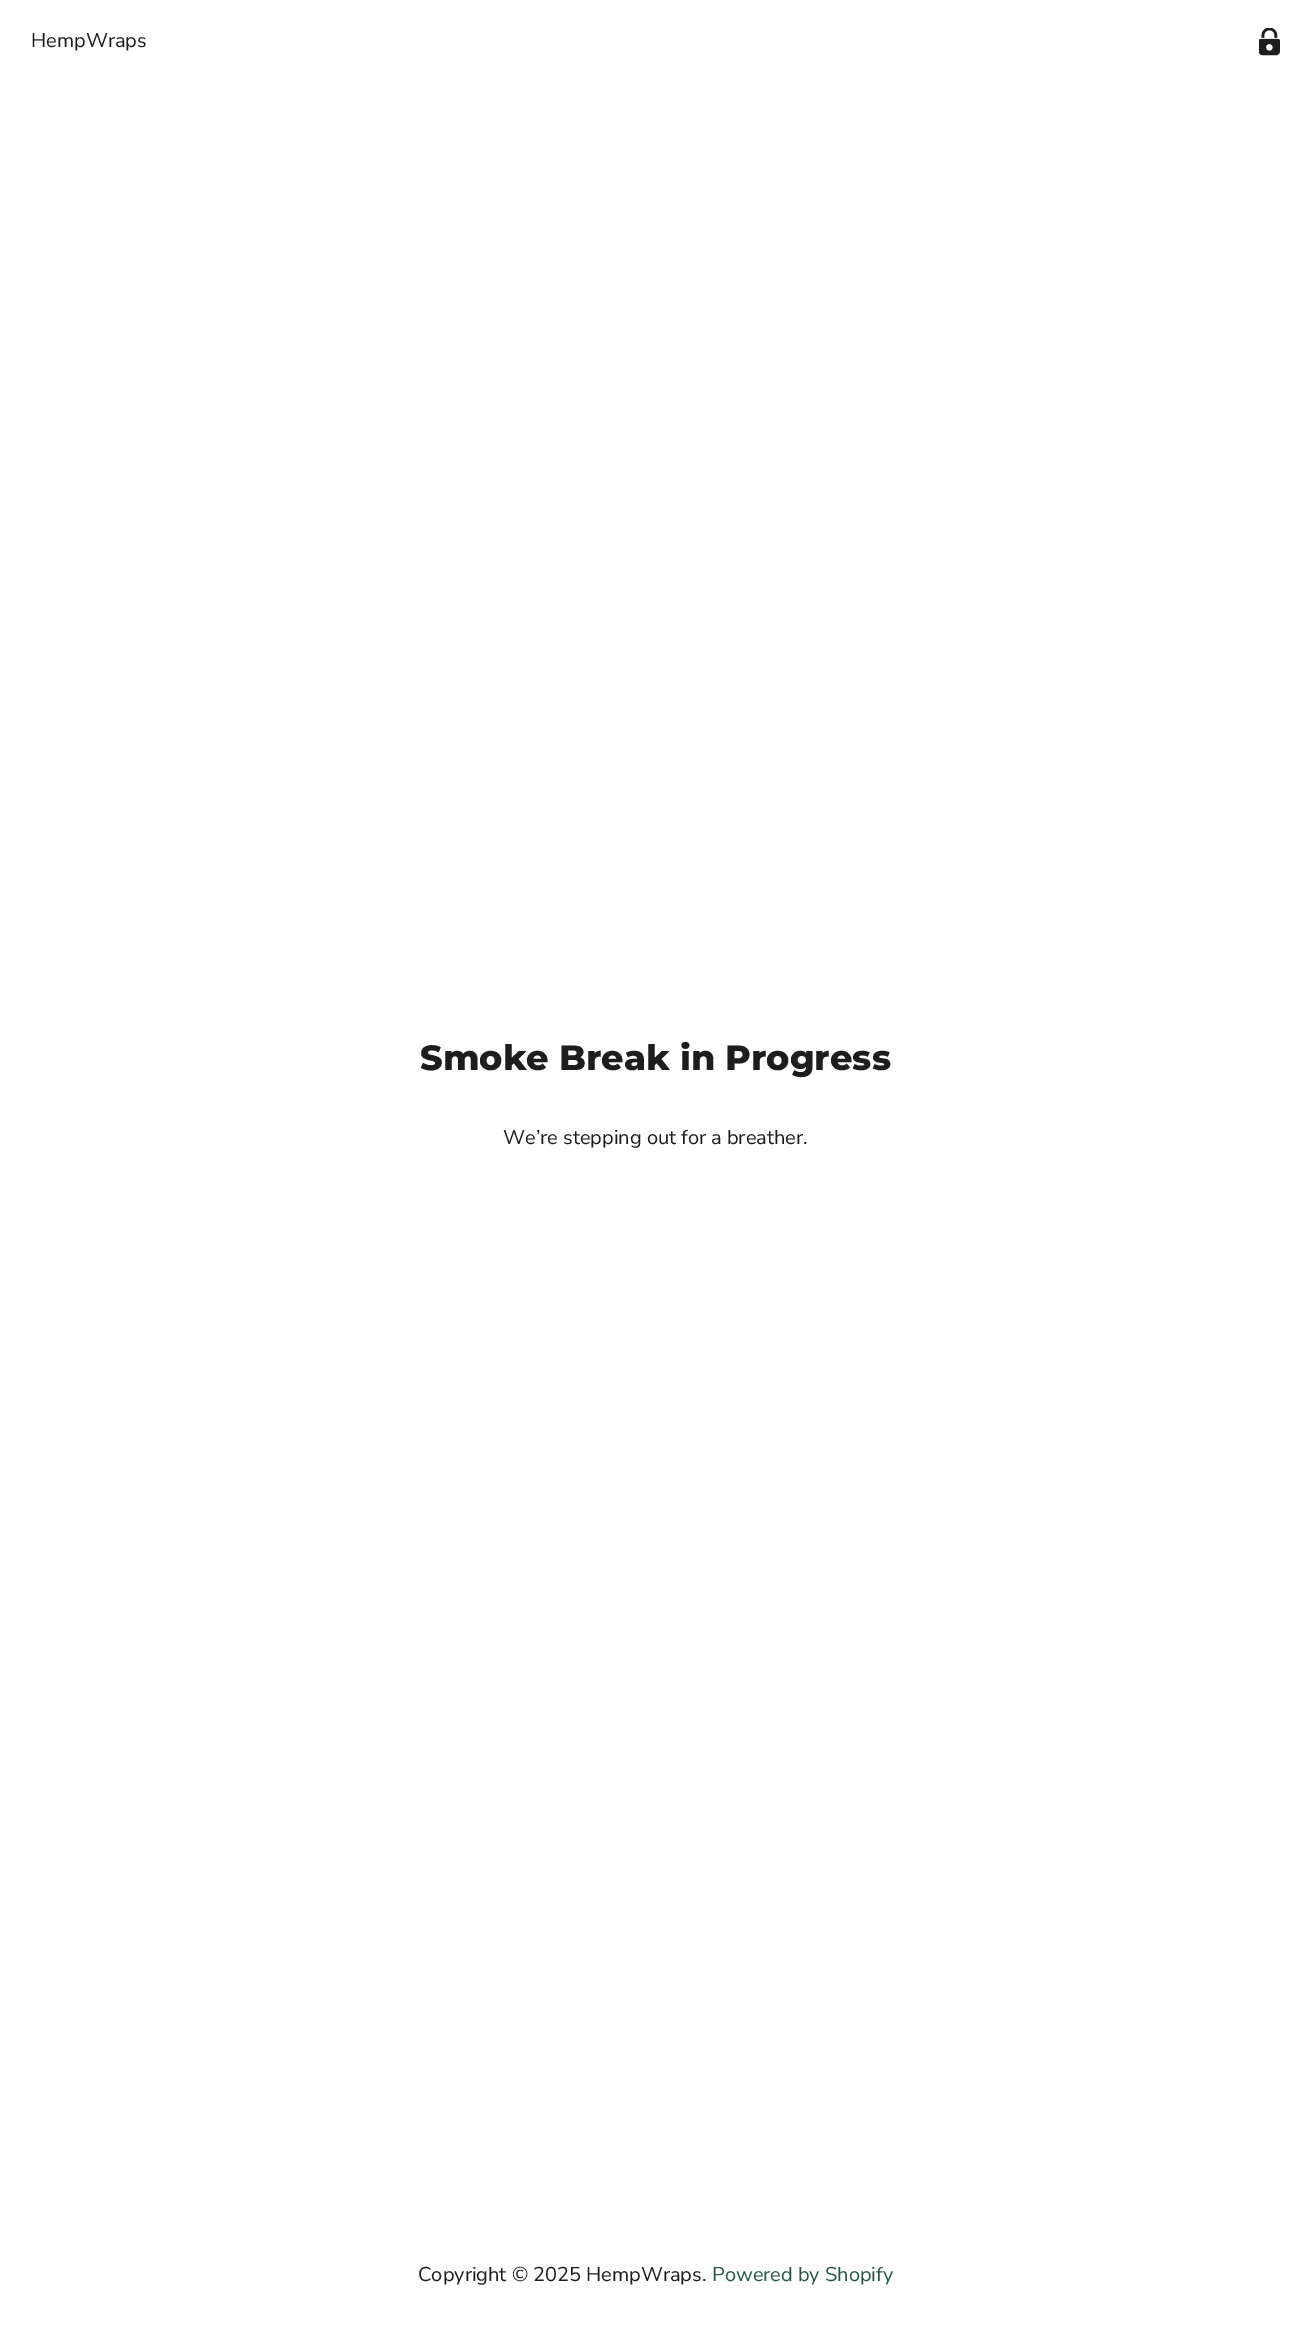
%!PS
<< /PageSize [1311 2346] >> setpagedevice
/co { dup -16 bitshift 255 div exch dup -8 bitshift 255 and 255 div exch 255 and 255 div setrgbcolor } def
/fn { [ exch dup neg 0 0 3 -1 roll 0 0 ] selectfont } def
/tx { co fn moveto show } def
/bx { co rectfill } def
/im { 5 dict begin { /h /w /y /x /name } { exch def } forall
  gsave x y translate w h scale
  w h 8 [w 0 0 h 0 0] name (r) file false 3 colorimage grestore end } def
0 2346 translate 1 -1 scale
4 setmiterlimit
0 0 1311 2346 16#FFFFFF bx
(media/1.raw) 1259 28 21 28 im
(HempWraps) 31 47 /NunitoSans-Regular 20 16#1D1D1D tx
(Smoke Break in Progress) 420 1070 /Montserrat-ExtraBold 35 16#1D1D1D tx
(We’re stepping out for a breather.) 503 1144 /NunitoSans-Regular 20 16#1D1D1D tx
(Copyright © 2025 HempWraps.) 418 2281 /NunitoSans-Regular 20 16#1D1D1D tx
(Powered by Shopify) 712 2281 /NunitoSans-Regular 20 16#255749 tx
showpage
